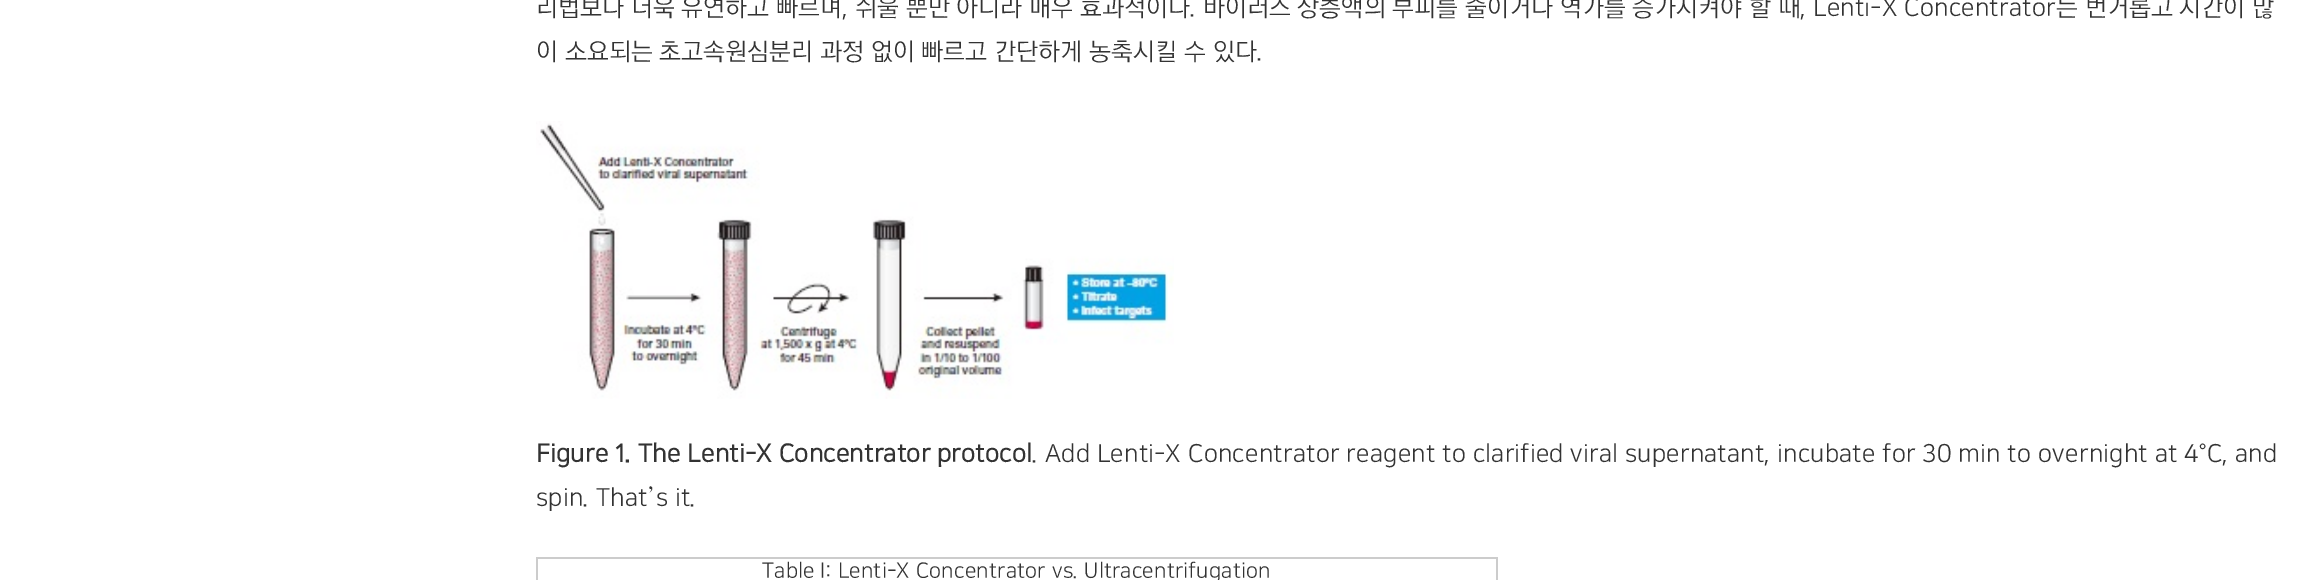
%!PS
<< /PageSize [2313 580] >> setpagedevice
/co { dup -16 bitshift 255 div exch dup -8 bitshift 255 and 255 div exch 255 and 255 div setrgbcolor } def
/fn { [ exch dup neg 0 0 3 -1 roll 0 0 ] selectfont } def
/tx { co fn moveto show } def
/bx { co rectfill } def
/im { 5 dict begin { /h /w /y /x /name } { exch def } forall
  gsave x y translate w h scale
  w h 8 [w 0 0 h 0 0] name (r) file false 3 colorimage grestore end } def
0 580 translate 1 -1 scale
4 setmiterlimit
0 0 2313 580 16#FFFFFF bx
(media/1.raw) 536 121 638 278 im
536 557 962 2 16#CCCCCC bx
1496 557 2 23 16#CCCCCC bx
536 557 2 23 16#CCCCCC bx
(리법보다 더욱 유연하고 빠르며, 쉬울 뿐만 아니라 매우 효과적이다. 바이러스 상층액의 부피를 줄이거나 역가를 증가시켜야 할 때, Lenti-X Concentrator는 번거롭고 시간이 많) 536 15 /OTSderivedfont-ExtraLight 24.5 16#333333 tx
(이 소요되는 초고속원심분리 과정 없이 빠르고 간단하게 농축시킬 수 있다.) 536 59 /OTSderivedfont-ExtraLight 24.5 16#333333 tx
(Figure 1. The Lenti-X Concentrator protocol) 536 461 /OTSderivedfont-Bold 24.5 16#333333 tx
(. Add Lenti-X Concentrator reagent to clarified viral supernatant, incubate for 30 min to overnight at 4°C, and) 1032 461 /OTSderivedfont-ExtraLight 24.5 16#333333 tx
(spin. That’s it.) 536 505 /OTSderivedfont-ExtraLight 24.5 16#333333 tx
(Table I: Lenti-X Concentrator vs. Ultracentrifugation) 762 577 /OTSderivedfont-ExtraLight 21 16#333333 tx
showpage
